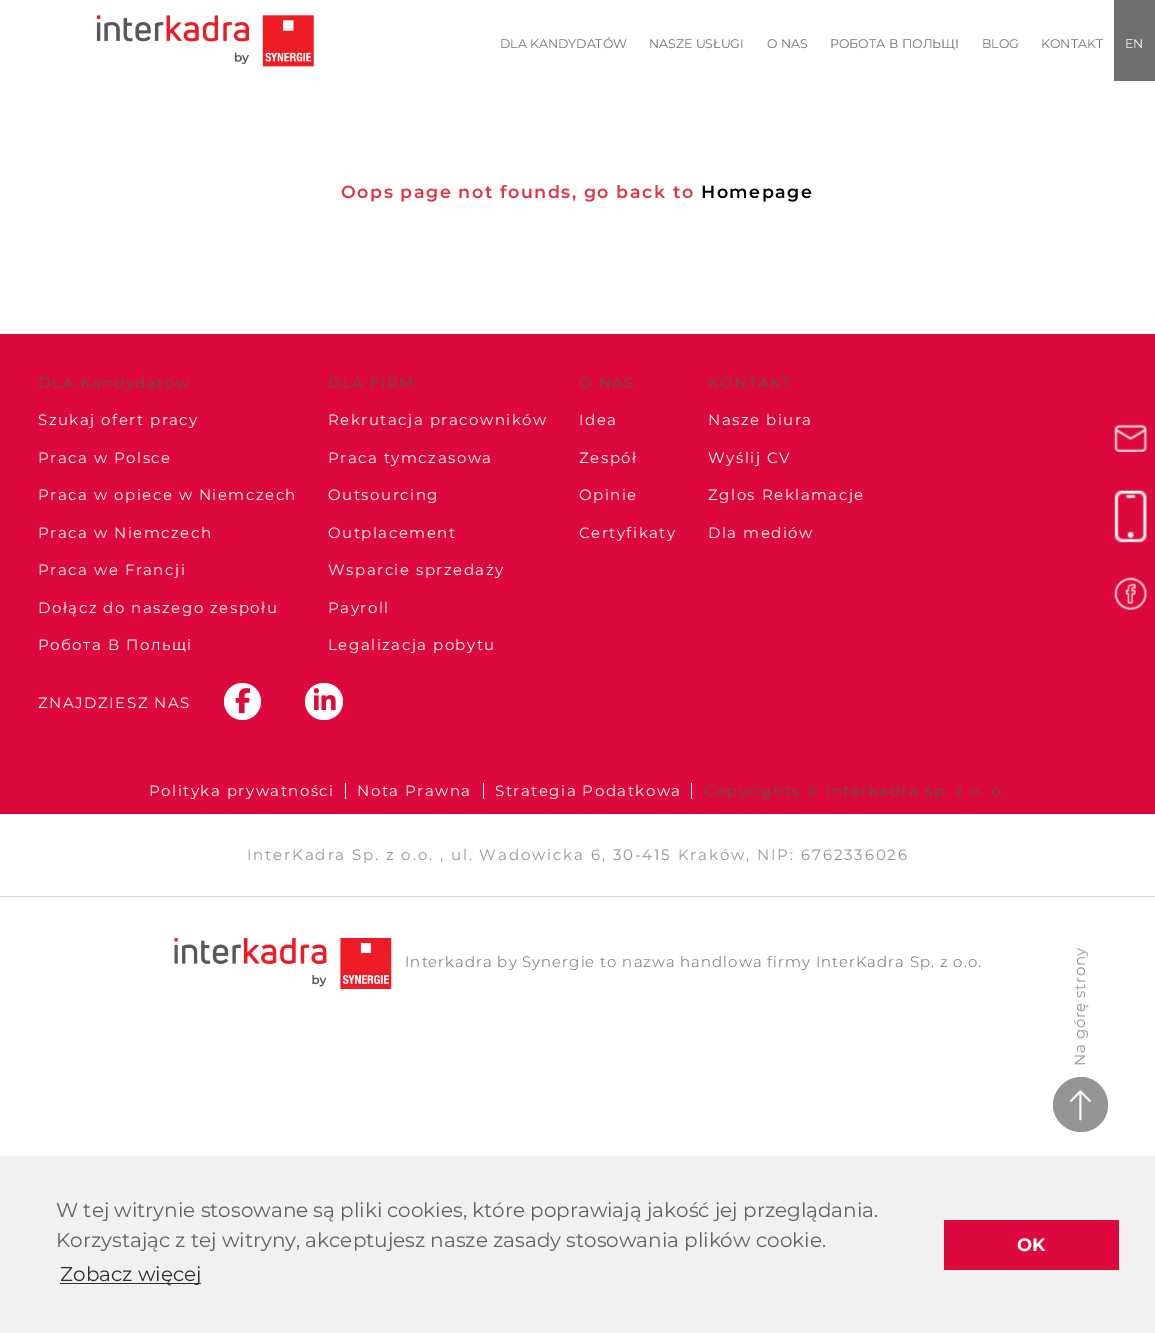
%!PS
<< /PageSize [1155 1333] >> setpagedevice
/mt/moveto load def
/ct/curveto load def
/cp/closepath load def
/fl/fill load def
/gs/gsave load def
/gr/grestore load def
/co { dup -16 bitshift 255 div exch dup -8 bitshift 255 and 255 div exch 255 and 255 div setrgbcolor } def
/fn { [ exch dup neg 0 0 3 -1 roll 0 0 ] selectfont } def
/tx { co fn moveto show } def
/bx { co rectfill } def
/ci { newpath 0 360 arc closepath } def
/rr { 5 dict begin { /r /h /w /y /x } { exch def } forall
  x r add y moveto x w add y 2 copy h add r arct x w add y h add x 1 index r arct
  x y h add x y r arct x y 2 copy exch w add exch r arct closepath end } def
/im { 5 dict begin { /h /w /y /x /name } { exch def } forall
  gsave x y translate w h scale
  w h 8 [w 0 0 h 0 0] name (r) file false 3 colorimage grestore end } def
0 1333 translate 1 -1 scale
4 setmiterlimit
0 0 1155 1333 16#FFFFFF bx
(media/1.raw) 96 15 218 52 im
1114 0 41 81 16#706F6F bx
0 334 1155 480 16#DD083B bx
16#FFFFFF co
242.5 701.5 18.5 ci fl
(media/2.raw) 235 688 15 26 im
305 683 38 37 18.5 rr fl
(media/3.raw) 313 688 23 22 im
345 783 1 16 16#FFFFFF bx
483 783 1 16 16#FFFFFF bx
691 783 1 16 16#FFFFFF bx
0 896 1155 1 16#D6D6D6 bx
(media/4.raw) 174 938 218 51 im
(media/5.raw) 1114 424 33 28 im
(media/6.raw) 1114 490 33 53 im
(media/7.raw) 1114 577 33 33 im
16#959595 co
1053 1105 mt 1053 1090 1066 1077 1081 1077 ct 1096 1077 1108 1090 1108 1105 ct 1108 1120 1096 1132 1081 1132 ct 1066 1132 1053 1120 1053 1105 ct cp fl
(media/8.raw) 1069 1090 22 31 im
0 1156 1155 177 16#F1F1F1 bx
60 1283 141 1 16#303030 bx
944 1220 175 50 16#DD083B bx
(DLA KANDYDATÓW) 500 48 /Montserrat-Regular 12.5 16#706F6F tx
(NASZE USŁUGI) 649 48 /Montserrat-Regular 12.5 16#706F6F tx
(O NAS) 767 48 /Montserrat-Regular 12.5 16#706F6F tx
(РOБОТА В ПОЛЬЩІ) 830 48 /Montserrat-Regular 12.5 16#706F6F tx
(BLOG) 982 48 /Montserrat-Regular 12.5 16#706F6F tx
(KONTAKT) 1041 48 /Montserrat-Regular 12.5 16#706F6F tx
(EN) 1125 48 /Montserrat-Regular 12.5 16#FFFFFF tx
/Montserrat-SemiBold 17.5 fn
16#DC3545 co
341 198 mt 1.5 0 (Oops page not founds, go back to) ashow
16#000000 co
701 198 mt 1.5 0 (Homepage) ashow
/Montserrat-Regular 15 fn
16#5A5A5A co
38 388 mt 1.5 0 (DLA Kandydatów) ashow
16#FFFFFF co
38 425 mt 1.5 0 (Szukaj ofert pracy) ashow
38 463 mt 1.5 0 (Praca w Polsce) ashow
38 500 mt 1.5 0 (Praca w opiece w Niemczech) ashow
38 538 mt 1.5 0 (Praca w Niemczech) ashow
38 575 mt 1.5 0 (Praca we Francji) ashow
38 613 mt 1.5 0 (Dołącz do naszego zespołu) ashow
38 650 mt 1.5 0 (Рoбота В Польщі) ashow
16#5A5A5A co
328 388 mt 1.5 0 (DLA FIRM) ashow
16#FFFFFF co
328 425 mt 1.5 0 (Rekrutacja pracowników) ashow
328 463 mt 1.5 0 (Praca tymczasowa) ashow
328 500 mt 1.5 0 (Outsourcing) ashow
328 538 mt 1.5 0 (Outplacement) ashow
328 575 mt 1.5 0 (Wsparcie sprzedaży) ashow
328 613 mt 1.5 0 (Payroll) ashow
328 650 mt 1.5 0 (Legalizacja pobytu) ashow
16#5A5A5A co
579 388 mt 1.5 0 (O NAS) ashow
16#FFFFFF co
579 425 mt 1.5 0 (Idea) ashow
579 463 mt 1.5 0 (Zespół) ashow
579 500 mt 1.5 0 (Opinie) ashow
579 538 mt 1.5 0 (Certyfikaty) ashow
16#5A5A5A co
708 388 mt 1.5 0 (KONTAKT) ashow
16#FFFFFF co
708 425 mt 1.5 0 (Nasze biura) ashow
708 463 mt 1.5 0 (Wyślij CV) ashow
708 500 mt 1.5 0 (Zglos Reklamacje) ashow
708 538 mt 1.5 0 (Dla mediów) ashow
38 708 mt 1.5 0 (ZNAJDZIESZ NAS) ashow
149 796 mt 1.5 0 (Polityka prywatności) ashow
357 796 mt 1.5 0 (Nota Prawna) ashow
495 796 mt 1.5 0 (Strategia Podatkowa) ashow
16#5A5A5A co
704 796 mt 1.5 0 (Copyrights © Interkadra sp. z o. o.) ashow
16#959595 co
247 860 mt 1.88 0 (InterKadra Sp. z o.o. , ul. Wadowicka 6, 30-415 Kraków, NIP: 6762336026) ashow
/Montserrat-Light 15 fn
16#636363 co
405 967 mt 1 0 (Interkadra by Synergie to nazwa handlowa firmy InterKadra Sp. z o.o.) ashow
/Montserrat-Regular 15 fn
16#959595 co
gs 1085 1066 translate -90 rotate 0 0 mt .6 0 (Na górę strony) ashow gr
(W tej witrynie stosowane są pliki cookies, które poprawiają jakość jej przeglądania.) 56 1217 /Montserrat-Regular 20 16#636363 tx
(Korzystając z tej witryny, akceptujesz nasze zasady stosowania plików cookie.) 56 1247 /Montserrat-Regular 20 16#636363 tx
(Zobacz więcej) 60 1281 /Montserrat-Regular 20 16#303030 tx
(OK) 1017 1251 /Montserrat-Bold 18 16#FFFFFF tx
showpage
